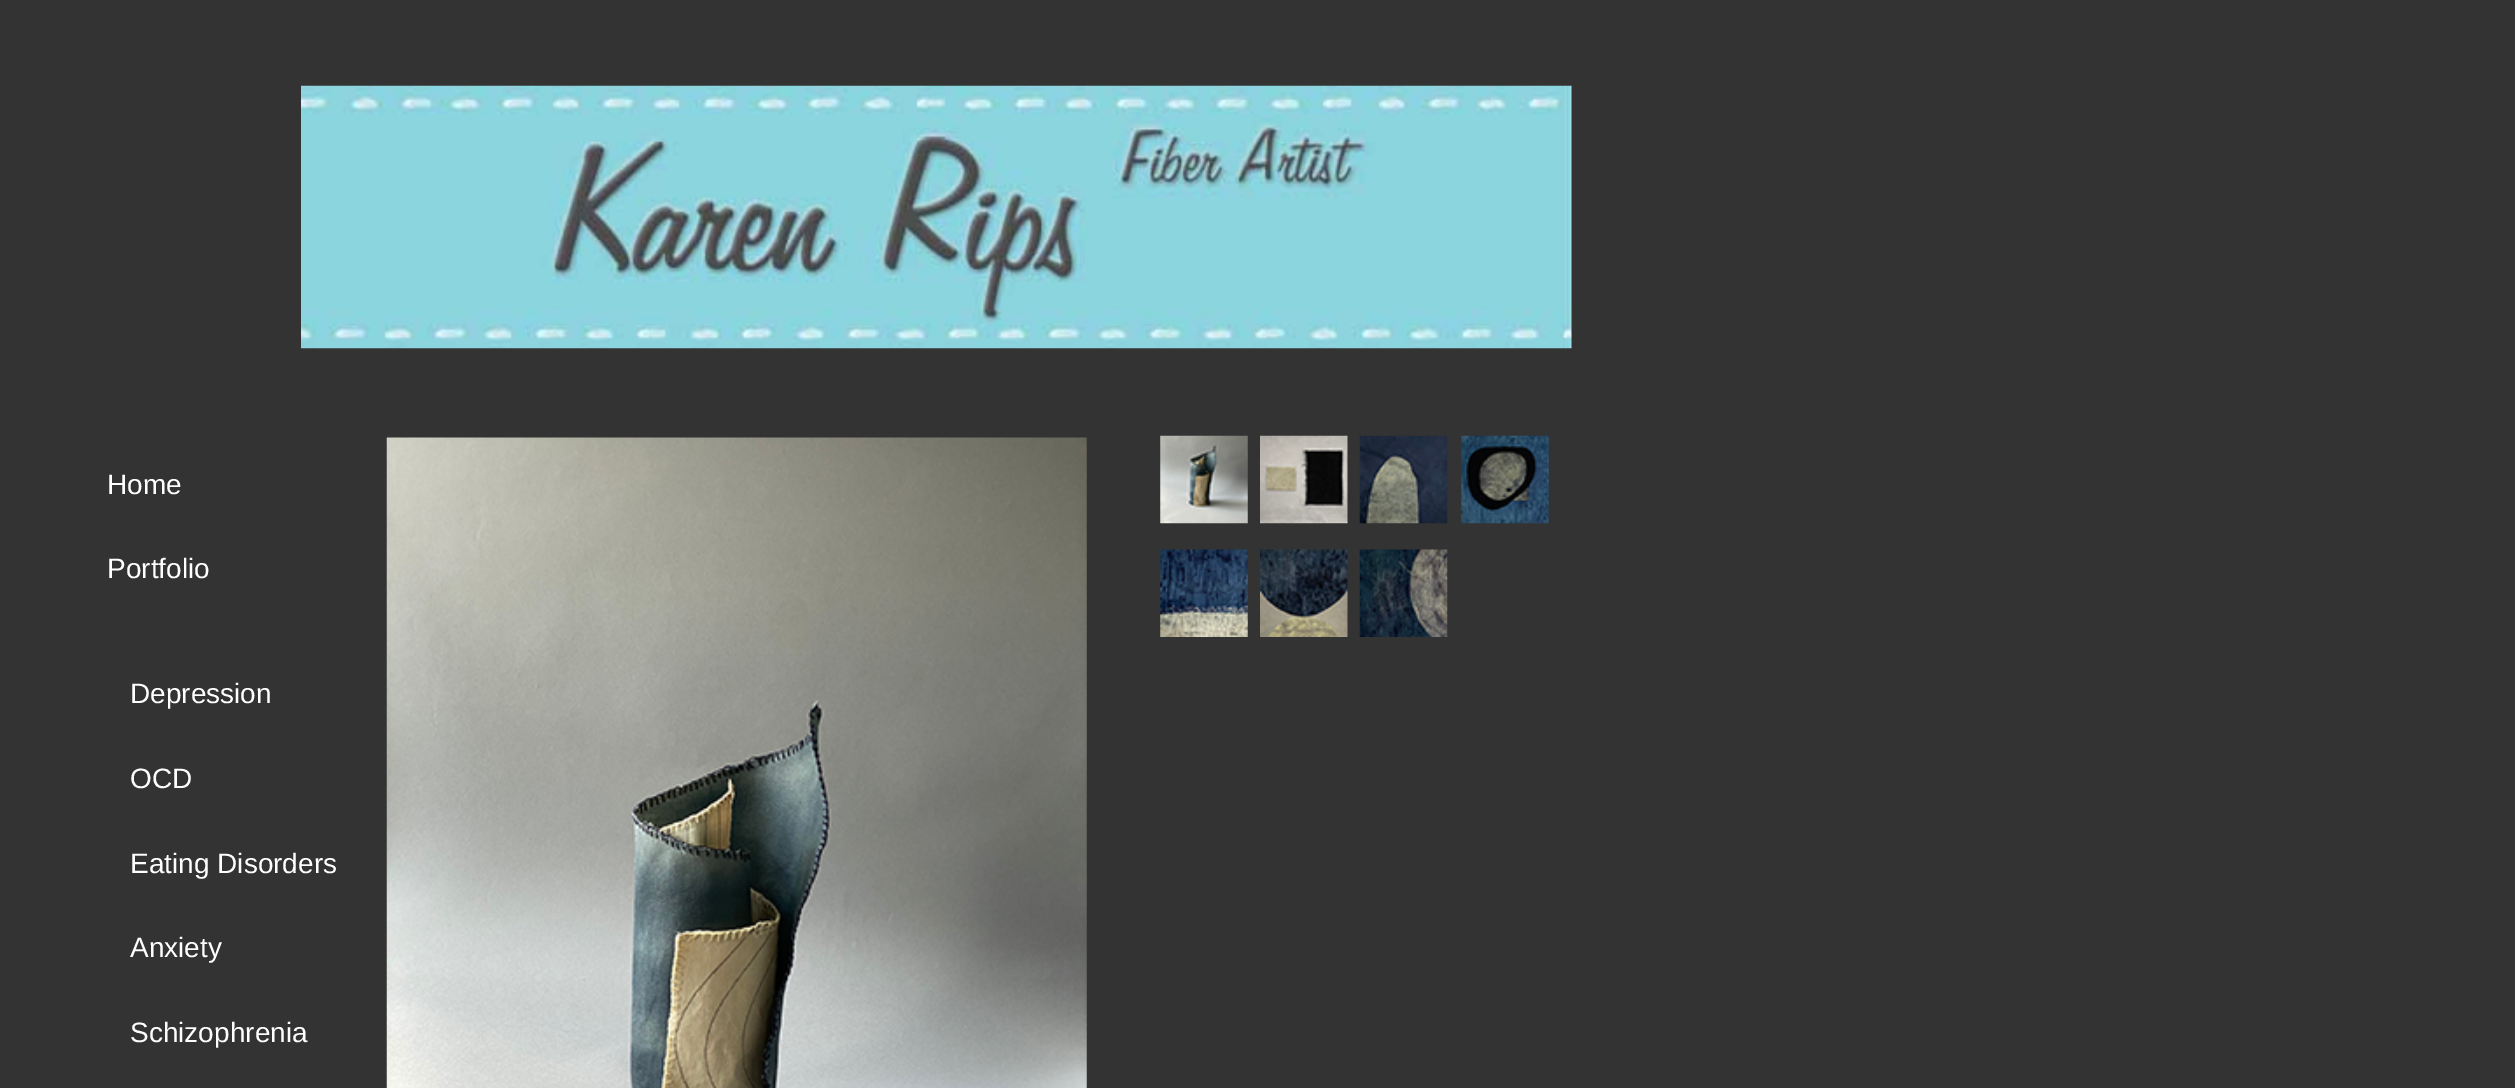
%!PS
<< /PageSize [2515 1088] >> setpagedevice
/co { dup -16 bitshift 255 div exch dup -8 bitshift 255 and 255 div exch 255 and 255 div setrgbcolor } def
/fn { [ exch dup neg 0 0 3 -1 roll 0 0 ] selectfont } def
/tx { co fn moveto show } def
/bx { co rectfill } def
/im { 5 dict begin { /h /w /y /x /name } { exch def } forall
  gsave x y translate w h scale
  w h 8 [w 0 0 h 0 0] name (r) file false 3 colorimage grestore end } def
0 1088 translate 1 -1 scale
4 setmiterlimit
0 0 2515 1088 16#333333 bx
(media/1.raw) 301 85 1271 264 im
(media/2.raw) 386 437 701 651 im
(media/3.raw) 1160 435 88 89 im
(media/4.raw) 1260 435 88 89 im
(media/5.raw) 1359 435 89 89 im
(media/6.raw) 1461 435 88 89 im
(media/7.raw) 1160 549 88 88 im
(media/8.raw) 1260 549 88 88 im
(media/9.raw) 1359 549 89 88 im
(Home) 107 494 /LiberationSans-Regular 28 16#FFFFFF tx
(Portfolio) 107 578 /LiberationSans-Regular 28 16#FFFFFF tx
(Depression) 130 703 /LiberationSans-Regular 28 16#FFFFFF tx
(OCD) 130 788 /LiberationSans-Regular 28 16#FFFFFF tx
(Eating Disorders) 130 873 /LiberationSans-Regular 28 16#FFFFFF tx
(Anxiety) 130 957 /LiberationSans-Regular 28 16#FFFFFF tx
(Schizophrenia) 130 1042 /LiberationSans-Regular 28 16#FFFFFF tx
showpage
